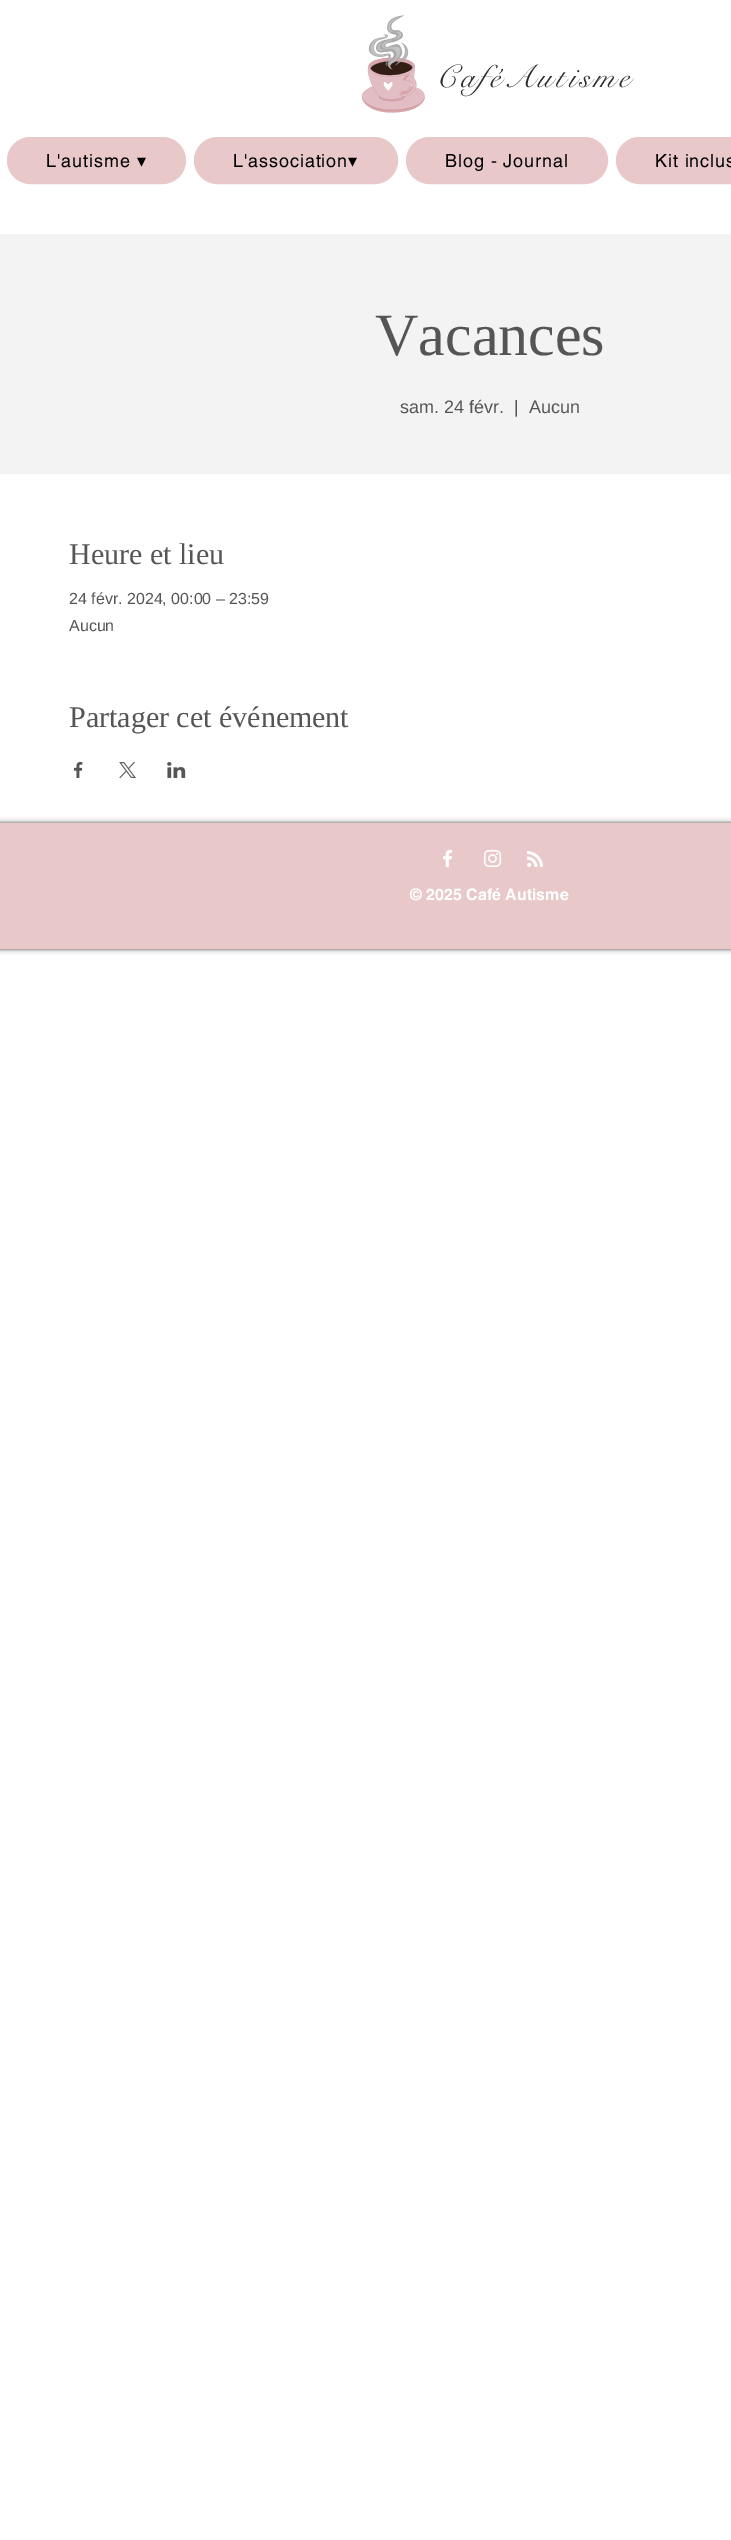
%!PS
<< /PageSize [731 2540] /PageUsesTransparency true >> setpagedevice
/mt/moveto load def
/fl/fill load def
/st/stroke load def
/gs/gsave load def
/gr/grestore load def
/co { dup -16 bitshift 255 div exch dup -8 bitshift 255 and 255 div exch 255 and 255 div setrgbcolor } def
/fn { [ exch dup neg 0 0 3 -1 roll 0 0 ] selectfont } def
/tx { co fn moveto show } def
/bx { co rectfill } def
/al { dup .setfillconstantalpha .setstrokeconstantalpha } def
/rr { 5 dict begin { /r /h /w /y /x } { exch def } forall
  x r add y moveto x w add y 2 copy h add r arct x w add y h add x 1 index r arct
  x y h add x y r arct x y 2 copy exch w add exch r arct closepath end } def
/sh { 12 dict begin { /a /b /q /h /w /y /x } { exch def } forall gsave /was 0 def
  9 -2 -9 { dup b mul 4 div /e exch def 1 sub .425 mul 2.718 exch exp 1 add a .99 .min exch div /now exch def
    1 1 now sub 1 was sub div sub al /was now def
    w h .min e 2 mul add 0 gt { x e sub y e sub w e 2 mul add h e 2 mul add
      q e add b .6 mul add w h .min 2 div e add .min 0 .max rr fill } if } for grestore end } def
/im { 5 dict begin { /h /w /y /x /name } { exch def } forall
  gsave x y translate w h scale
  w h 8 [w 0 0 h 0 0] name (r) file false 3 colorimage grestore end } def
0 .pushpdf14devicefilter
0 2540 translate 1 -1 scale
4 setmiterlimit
0 0 731 2540 16#FFFFFF bx
(media/1.raw) 362 15 63 98 im
16#E8C8C9 co
7.5 137.5 178 46 23 rr gs fl gr
st
194.5 137.5 203 46 23 rr gs fl gr
st
406.5 137.5 201 46 23 rr gs fl gr
st
616.5 137.5 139 46 23 rr gs fl gr
st
0 234 731 240 16#F3F3F3 bx
(media/2.raw) 74 762 9 16 im
(media/3.raw) 119 762 17 16 im
(media/4.raw) 167 762 19 16 im
16#000000 co
0 823 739 126 0 2.5 .7 sh
0 823 731 126 16#E8C8C9 bx
(media/5.raw) 443 849 10 19 im
(media/6.raw) 483 849 19 19 im
(media/7.raw) 527 851 16 16 im
/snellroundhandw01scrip-Regular 32 fn
16#2A2B2A co
436 87 mt 3.75 0 (CaféAutisme) ashow
/helvetica-Regular 18 fn
16#000000 co
46 167 mt .9 0 (L'autisme) ashow
/DejaVuSans-Regular 18 fn
137 167 mt .9 0 (▾) ashow
/helvetica-Regular 18 fn
233 167 mt .9 0 (L'association) ashow
/DejaVuSans-Regular 18 fn
348 167 mt .9 0 (▾) ashow
/helvetica-Regular 18 fn
445 167 mt .9 0 (Blog - Journal) ashow
655 167 mt .9 0 (Kit inclus) ashow
(Vacances) 375 355 /LiberationSerif-Regular 60 16#555555 tx
(sam. 24 févr.) 400 413 /LiberationSans-Regular 18 16#555555 tx
(|) 514 413 /LiberationSans-Regular 18 16#555555 tx
(Aucun) 529 413 /LiberationSans-Regular 18 16#555555 tx
(Heure et lieu) 69 564 /LiberationSerif-Regular 30 16#555555 tx
(24 févr. 2024, 00:00 – 23:59) 69 604 /LiberationSans-Regular 16 16#555555 tx
(Aucun) 69 631 /LiberationSans-Regular 16 16#555555 tx
(Partager cet événement) 69 727 /LiberationSerif-Regular 30 16#555555 tx
(© 2025 Café Autisme) 410 900 /helvetica-Bold 16 16#FFFFFF tx
.poppdf14devicefilter showpage
